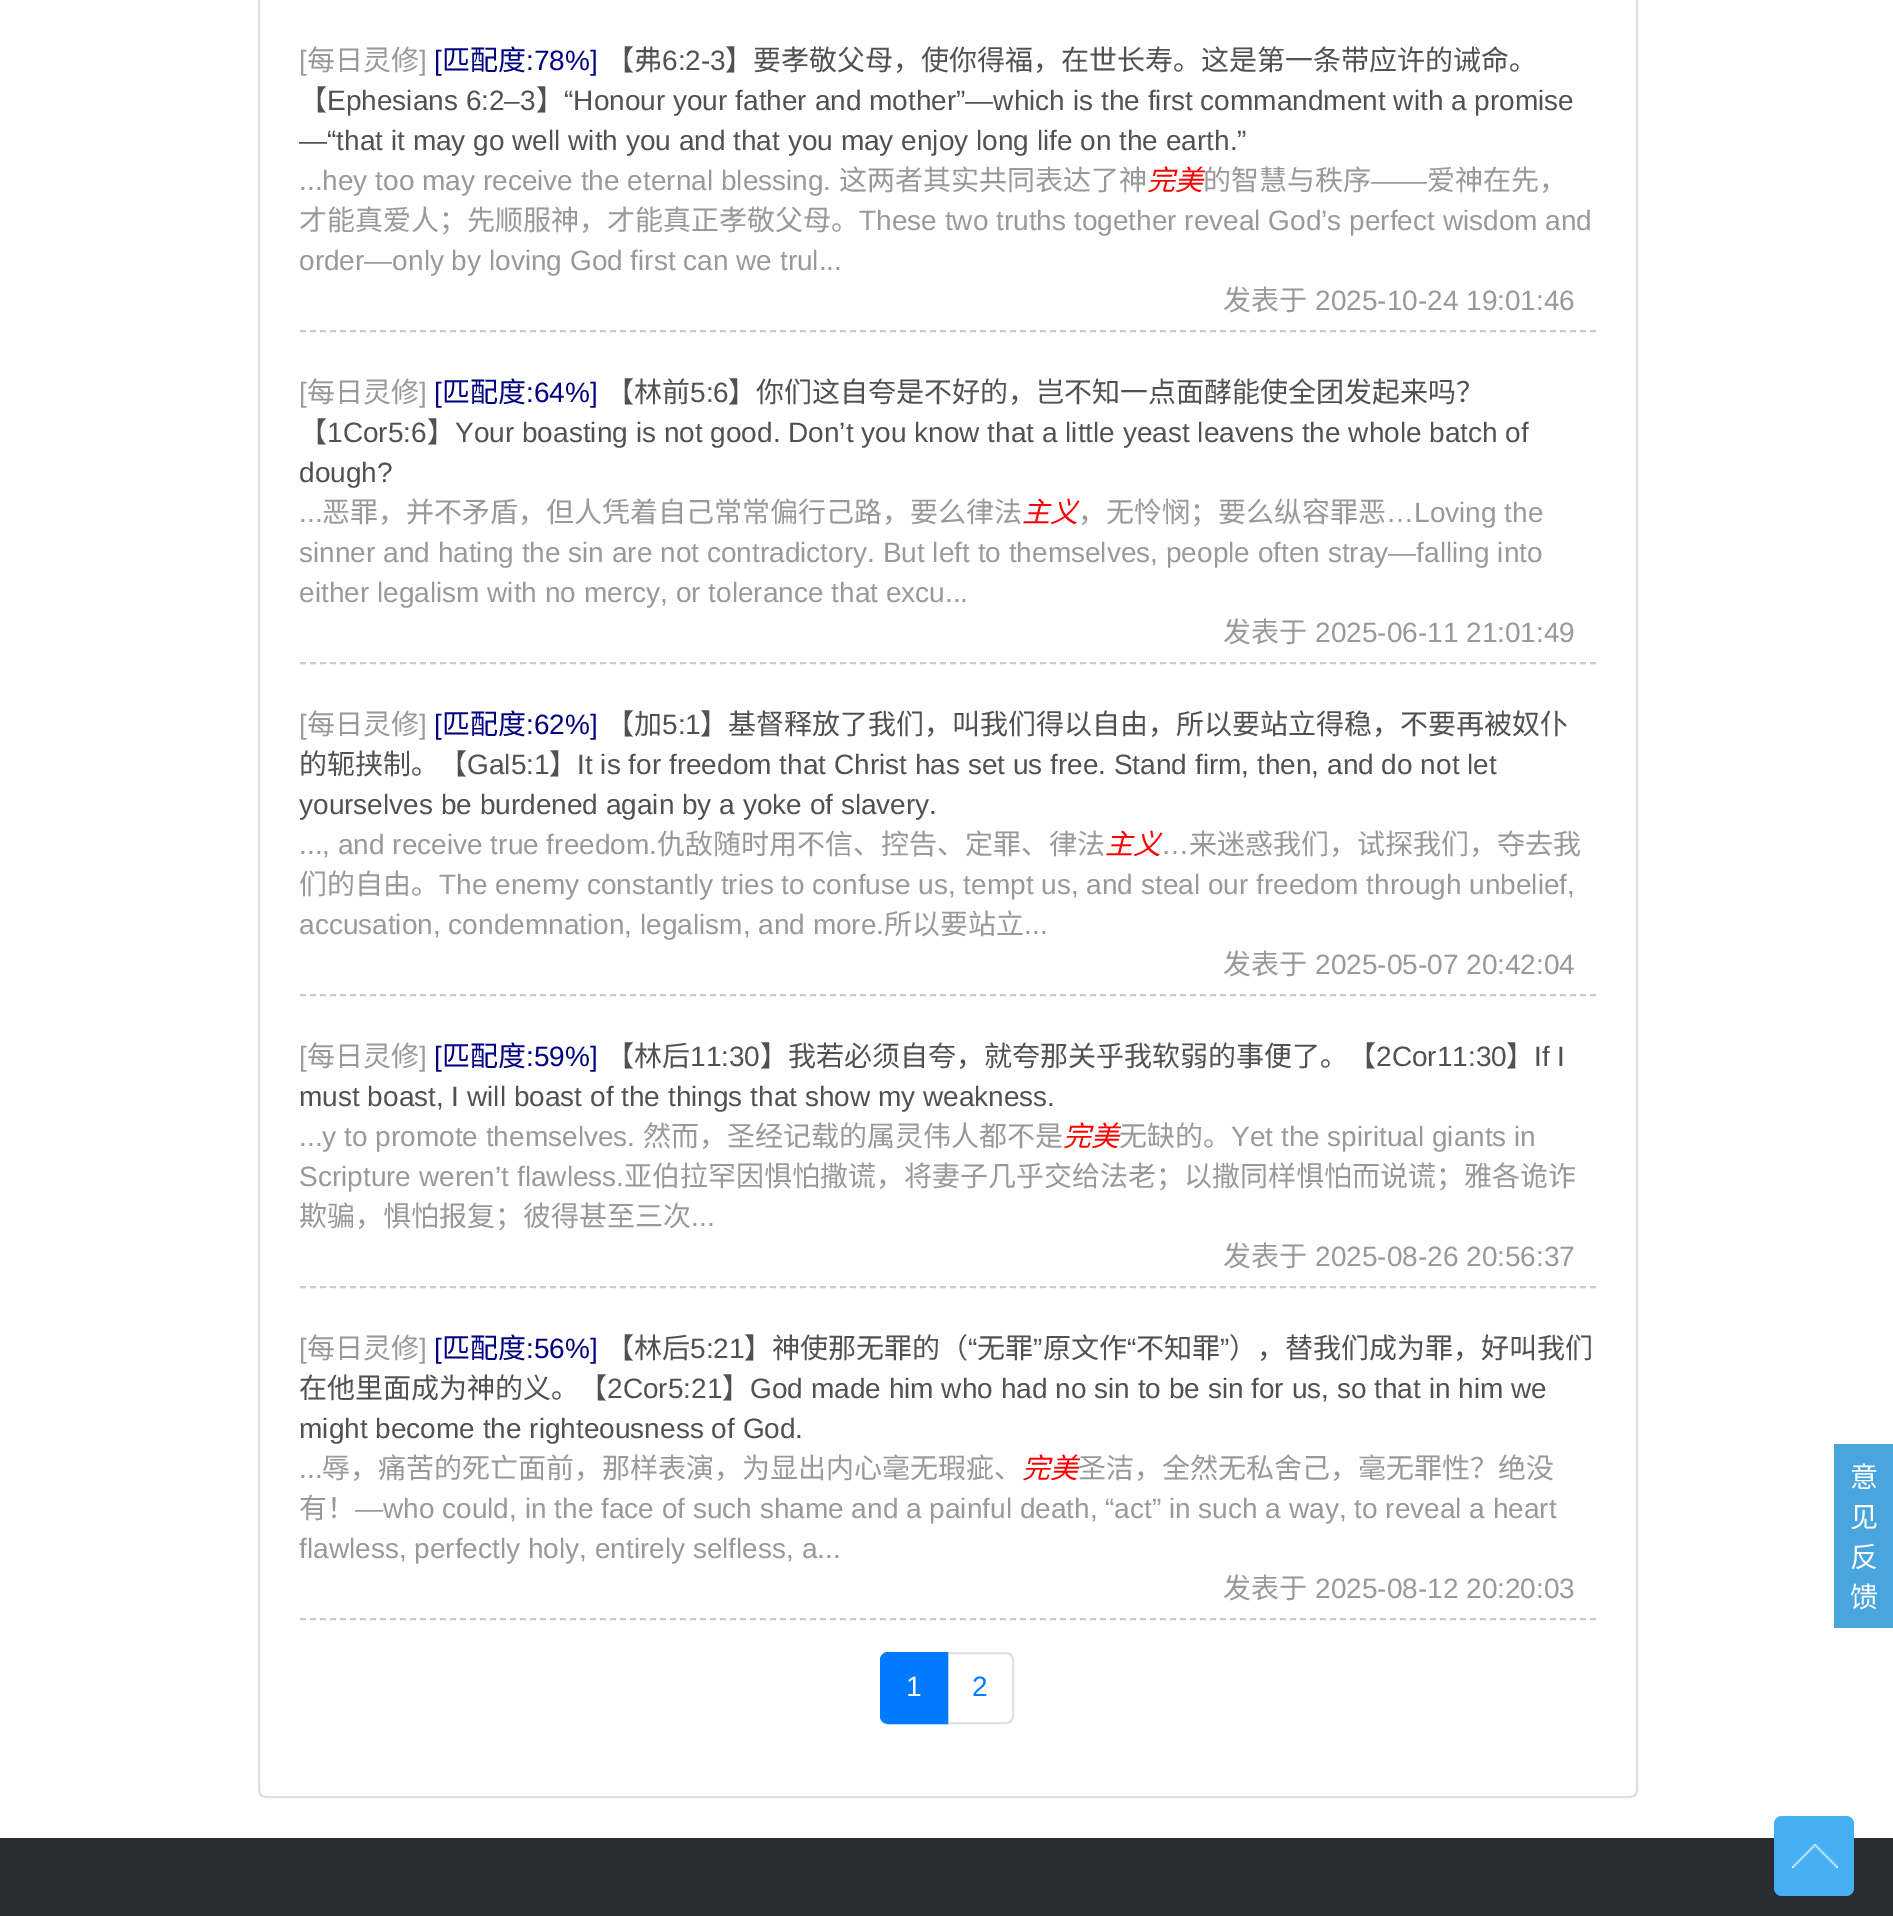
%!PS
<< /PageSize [1893 1916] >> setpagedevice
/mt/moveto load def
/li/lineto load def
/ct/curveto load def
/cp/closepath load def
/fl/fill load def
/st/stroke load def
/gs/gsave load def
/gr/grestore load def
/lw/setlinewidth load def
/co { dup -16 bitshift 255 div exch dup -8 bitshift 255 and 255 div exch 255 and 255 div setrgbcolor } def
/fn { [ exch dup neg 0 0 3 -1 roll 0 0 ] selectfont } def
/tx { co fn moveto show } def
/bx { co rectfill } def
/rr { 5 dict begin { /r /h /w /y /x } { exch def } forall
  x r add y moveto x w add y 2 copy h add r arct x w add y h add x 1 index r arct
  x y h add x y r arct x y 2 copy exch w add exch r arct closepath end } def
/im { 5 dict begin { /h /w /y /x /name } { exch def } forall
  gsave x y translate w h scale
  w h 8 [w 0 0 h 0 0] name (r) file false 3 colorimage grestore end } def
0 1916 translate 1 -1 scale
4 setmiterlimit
0 0 1893 1916 16#FFFFFF bx
16#DFDFDF co
2 lw
259 -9 1378 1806 7 rr st
16#CCCCCC co
[6 4] 0 setdash
300 331 mt 1596 331 li st
300 663 mt 1596 663 li st
300 995 mt 1596 995 li st
300 1287 mt 1596 1287 li st
300 1619 mt 1596 1619 li st
16#DEE2E6 co
[] 0 setdash
947 1653 mt 1006 1653 li 1010 1653 1013 1656 1013 1660 ct 1013 1716 li 1013 1720 1010 1723 1006 1723 ct 947 1723 li cp st
16#007BFF co
888 1653 mt 947 1653 li 947 1723 li 888 1723 li 884 1723 881 1720 881 1716 ct 881 1660 li 881 1656 884 1653 888 1653 ct cp gs fl gr
st
1834 1444 59 184 16#49A5DE bx
0 1838 1893 78 16#2A2C31 bx
16#44AFF2 co
1774 1816 80 80 8 rr fl
(media/1.raw) 1792 1844 46 24 im
([) 299 70 /LiberationSans-Regular 28 16#999999 tx
(每日灵修) 307 70 /NotoSansCJKSC-Regular 28 16#999999 tx
(]) 419 70 /LiberationSans-Regular 28 16#999999 tx
([) 434 70 /LiberationSans-Regular 28 16#000080 tx
(匹配度) 442 70 /NotoSansCJKSC-Regular 28 16#000080 tx
(:78%]) 526 70 /LiberationSans-Regular 28 16#000080 tx
(【弗) 606 70 /NotoSansCJKSC-Regular 28 16#515151 tx
(6:2-3) 662 70 /LiberationSans-Regular 28 16#515151 tx
(】要孝敬父母，使你得福，在世长寿。这是第一条带应许的诫命。) 725 70 /NotoSansCJKSC-Regular 28 16#515151 tx
(【) 299 110 /NotoSansCJKSC-Regular 28 16#515151 tx
(Ephesians 6:2–3) 327 110 /LiberationSans-Regular 28 16#515151 tx
(】) 536 110 /NotoSansCJKSC-Regular 28 16#515151 tx
(“Honour your father and mother”—which is the first commandment with a promise) 564 110 /LiberationSans-Regular 28 16#515151 tx
(—“that it may go well with you and that you may enjoy long life on the earth.”) 299 150 /LiberationSans-Regular 28 16#515151 tx
(...hey too may receive the eternal blessing.) 299 190 /LiberationSans-Regular 28 16#999999 tx
(这两者其实共同表达了神) 839 190 /NotoSansCJKSC-Regular 28 16#999999 tx
(完美) 1147 190 /NotoSansCJKSC-Italic 28 16#FF0000 tx
(的智慧与秩序) 1203 190 /NotoSansCJKSC-Regular 28 16#999999 tx
(——) 1371 190 /LiberationSans-Regular 28 16#999999 tx
(爱神在先，) 1427 190 /NotoSansCJKSC-Regular 28 16#999999 tx
(才能真爱人；先顺服神，才能真正孝敬父母。) 299 230 /NotoSansCJKSC-Regular 28 16#999999 tx
(These two truths together reveal God’s perfect wisdom and) 859 230 /LiberationSans-Regular 28 16#999999 tx
(order—only by loving God first can we trul...) 299 270 /LiberationSans-Regular 28 16#999999 tx
(发表于) 1223 310 /NotoSansCJKSC-Regular 28 16#999999 tx
(2025-10-24 19:01:46) 1315 310 /LiberationSans-Regular 28 16#999999 tx
([) 299 402 /LiberationSans-Regular 28 16#999999 tx
(每日灵修) 307 402 /NotoSansCJKSC-Regular 28 16#999999 tx
(]) 419 402 /LiberationSans-Regular 28 16#999999 tx
([) 434 402 /LiberationSans-Regular 28 16#000080 tx
(匹配度) 442 402 /NotoSansCJKSC-Regular 28 16#000080 tx
(:64%]) 526 402 /LiberationSans-Regular 28 16#000080 tx
(【林前) 606 402 /NotoSansCJKSC-Regular 28 16#515151 tx
(5:6) 690 402 /LiberationSans-Regular 28 16#515151 tx
(】你们这自夸是不好的，岂不知一点面酵能使全团发起来吗？) 728 402 /NotoSansCJKSC-Regular 28 16#515151 tx
(【) 299 442 /NotoSansCJKSC-Regular 28 16#515151 tx
(1Cor5:6) 327 442 /LiberationSans-Regular 28 16#515151 tx
(】) 427 442 /NotoSansCJKSC-Regular 28 16#515151 tx
(Your boasting is not good. Don’t you know that a little yeast leavens the whole batch of) 455 442 /LiberationSans-Regular 28 16#515151 tx
(dough?) 299 482 /LiberationSans-Regular 28 16#515151 tx
(...) 299 522 /LiberationSans-Regular 28 16#999999 tx
(恶罪，并不矛盾，但人凭着自己常常偏行己路，要么律法) 322 522 /NotoSansCJKSC-Regular 28 16#999999 tx
(主义) 1022 522 /NotoSansCJKSC-Italic 28 16#FF0000 tx
(，无怜悯；要么纵容罪恶) 1078 522 /NotoSansCJKSC-Regular 28 16#999999 tx
(…Loving the) 1386 522 /LiberationSans-Regular 28 16#999999 tx
(sinner and hating the sin are not contradictory. But left to themselves, people often stray—falling into) 299 562 /LiberationSans-Regular 28 16#999999 tx
(either legalism with no mercy, or tolerance that excu...) 299 602 /LiberationSans-Regular 28 16#999999 tx
(发表于) 1223 642 /NotoSansCJKSC-Regular 28 16#999999 tx
(2025-06-11 21:01:49) 1315 642 /LiberationSans-Regular 28 16#999999 tx
([) 299 734 /LiberationSans-Regular 28 16#999999 tx
(每日灵修) 307 734 /NotoSansCJKSC-Regular 28 16#999999 tx
(]) 419 734 /LiberationSans-Regular 28 16#999999 tx
([) 434 734 /LiberationSans-Regular 28 16#000080 tx
(匹配度) 442 734 /NotoSansCJKSC-Regular 28 16#000080 tx
(:62%]) 526 734 /LiberationSans-Regular 28 16#000080 tx
(【加) 606 734 /NotoSansCJKSC-Regular 28 16#515151 tx
(5:1) 662 734 /LiberationSans-Regular 28 16#515151 tx
(】基督释放了我们，叫我们得以自由，所以要站立得稳，不要再被奴仆) 700 734 /NotoSansCJKSC-Regular 28 16#515151 tx
(的轭挟制。【) 299 774 /NotoSansCJKSC-Regular 28 16#515151 tx
(Gal5:1) 467 774 /LiberationSans-Regular 28 16#515151 tx
(】) 549 774 /NotoSansCJKSC-Regular 28 16#515151 tx
(It is for freedom that Christ has set us free. Stand firm, then, and do not let) 577 774 /LiberationSans-Regular 28 16#515151 tx
(yourselves be burdened again by a yoke of slavery.) 299 814 /LiberationSans-Regular 28 16#515151 tx
(..., and receive true freedom.) 299 854 /LiberationSans-Regular 28 16#999999 tx
(仇敌随时用不信、控告、定罪、律法) 657 854 /NotoSansCJKSC-Regular 28 16#999999 tx
(主义) 1105 854 /NotoSansCJKSC-Italic 28 16#FF0000 tx
(…) 1161 854 /LiberationSans-Regular 28 16#999999 tx
(来迷惑我们，试探我们，夺去我) 1189 854 /NotoSansCJKSC-Regular 28 16#999999 tx
(们的自由。) 299 894 /NotoSansCJKSC-Regular 28 16#999999 tx
(The enemy constantly tries to confuse us, tempt us, and steal our freedom through unbelief,) 439 894 /LiberationSans-Regular 28 16#999999 tx
(accusation, condemnation, legalism, and more.) 299 934 /LiberationSans-Regular 28 16#999999 tx
(所以要站立) 884 934 /NotoSansCJKSC-Regular 28 16#999999 tx
(...) 1024 934 /LiberationSans-Regular 28 16#999999 tx
(发表于) 1223 974 /NotoSansCJKSC-Regular 28 16#999999 tx
(2025-05-07 20:42:04) 1315 974 /LiberationSans-Regular 28 16#999999 tx
([) 299 1066 /LiberationSans-Regular 28 16#999999 tx
(每日灵修) 307 1066 /NotoSansCJKSC-Regular 28 16#999999 tx
(]) 419 1066 /LiberationSans-Regular 28 16#999999 tx
([) 434 1066 /LiberationSans-Regular 28 16#000080 tx
(匹配度) 442 1066 /NotoSansCJKSC-Regular 28 16#000080 tx
(:59%]) 526 1066 /LiberationSans-Regular 28 16#000080 tx
(【林后) 606 1066 /NotoSansCJKSC-Regular 28 16#515151 tx
(11:30) 690 1066 /LiberationSans-Regular 28 16#515151 tx
(】我若必须自夸，就夸那关乎我软弱的事便了。【) 760 1066 /NotoSansCJKSC-Regular 28 16#515151 tx
(2Cor11:30) 1376 1066 /LiberationSans-Regular 28 16#515151 tx
(】) 1506 1066 /NotoSansCJKSC-Regular 28 16#515151 tx
(If I) 1534 1066 /LiberationSans-Regular 28 16#515151 tx
(must boast, I will boast of the things that show my weakness.) 299 1106 /LiberationSans-Regular 28 16#515151 tx
(...y to promote themselves.) 299 1146 /LiberationSans-Regular 28 16#999999 tx
(然而，圣经记载的属灵伟人都不是) 643 1146 /NotoSansCJKSC-Regular 28 16#999999 tx
(完美) 1063 1146 /NotoSansCJKSC-Italic 28 16#FF0000 tx
(无缺的。) 1119 1146 /NotoSansCJKSC-Regular 28 16#999999 tx
(Yet the spiritual giants in) 1231 1146 /LiberationSans-Regular 28 16#999999 tx
(Scripture weren’t flawless.) 299 1186 /LiberationSans-Regular 28 16#999999 tx
(亚伯拉罕因惧怕撒谎，将妻子几乎交给法老；以撒同样惧怕而说谎；雅各诡诈) 624 1186 /NotoSansCJKSC-Regular 28 16#999999 tx
(欺骗，惧怕报复；彼得甚至三次) 299 1226 /NotoSansCJKSC-Regular 28 16#999999 tx
(...) 691 1226 /LiberationSans-Regular 28 16#999999 tx
(发表于) 1223 1266 /NotoSansCJKSC-Regular 28 16#999999 tx
(2025-08-26 20:56:37) 1315 1266 /LiberationSans-Regular 28 16#999999 tx
([) 299 1358 /LiberationSans-Regular 28 16#999999 tx
(每日灵修) 307 1358 /NotoSansCJKSC-Regular 28 16#999999 tx
(]) 419 1358 /LiberationSans-Regular 28 16#999999 tx
([) 434 1358 /LiberationSans-Regular 28 16#000080 tx
(匹配度) 442 1358 /NotoSansCJKSC-Regular 28 16#000080 tx
(:56%]) 526 1358 /LiberationSans-Regular 28 16#000080 tx
(【林后) 606 1358 /NotoSansCJKSC-Regular 28 16#515151 tx
(5:21) 690 1358 /LiberationSans-Regular 28 16#515151 tx
(】神使那无罪的（) 744 1358 /NotoSansCJKSC-Regular 28 16#515151 tx
(“) 968 1358 /LiberationSans-Regular 28 16#515151 tx
(无罪) 977 1358 /NotoSansCJKSC-Regular 28 16#515151 tx
(”) 1033 1358 /LiberationSans-Regular 28 16#515151 tx
(原文作) 1043 1358 /NotoSansCJKSC-Regular 28 16#515151 tx
(“) 1127 1358 /LiberationSans-Regular 28 16#515151 tx
(不知罪) 1136 1358 /NotoSansCJKSC-Regular 28 16#515151 tx
(”) 1220 1358 /LiberationSans-Regular 28 16#515151 tx
(），替我们成为罪，好叫我们) 1229 1358 /NotoSansCJKSC-Regular 28 16#515151 tx
(在他里面成为神的义。【) 299 1398 /NotoSansCJKSC-Regular 28 16#515151 tx
(2Cor5:21) 607 1398 /LiberationSans-Regular 28 16#515151 tx
(】) 722 1398 /NotoSansCJKSC-Regular 28 16#515151 tx
(God made him who had no sin to be sin for us, so that in him we) 750 1398 /LiberationSans-Regular 28 16#515151 tx
(might become the righteousness of God.) 299 1438 /LiberationSans-Regular 28 16#515151 tx
(...) 299 1478 /LiberationSans-Regular 28 16#999999 tx
(辱，痛苦的死亡面前，那样表演，为显出内心毫无瑕疵、) 322 1478 /NotoSansCJKSC-Regular 28 16#999999 tx
(完美) 1022 1478 /NotoSansCJKSC-Italic 28 16#FF0000 tx
(圣洁，全然无私舍己，毫无罪性？绝没) 1078 1478 /NotoSansCJKSC-Regular 28 16#999999 tx
(有！) 299 1518 /NotoSansCJKSC-Regular 28 16#999999 tx
(—who could, in the face of such shame and a painful death, “act” in such a way, to reveal a heart) 355 1518 /LiberationSans-Regular 28 16#999999 tx
(flawless, perfectly holy, entirely selfless, a...) 299 1558 /LiberationSans-Regular 28 16#999999 tx
(发表于) 1223 1598 /NotoSansCJKSC-Regular 28 16#999999 tx
(2025-08-12 20:20:03) 1315 1598 /LiberationSans-Regular 28 16#999999 tx
(1) 906 1696 /LiberationSans-Regular 28 16#FFFFFF tx
(2) 972 1696 /LiberationSans-Regular 28 16#007BFF tx
(意) 1850 1487 /NotoSansCJKSC-Regular 28 16#FFFFFF tx
(见) 1850 1527 /NotoSansCJKSC-Regular 28 16#FFFFFF tx
(反) 1850 1567 /NotoSansCJKSC-Regular 28 16#FFFFFF tx
(馈) 1850 1607 /NotoSansCJKSC-Regular 28 16#FFFFFF tx
showpage
